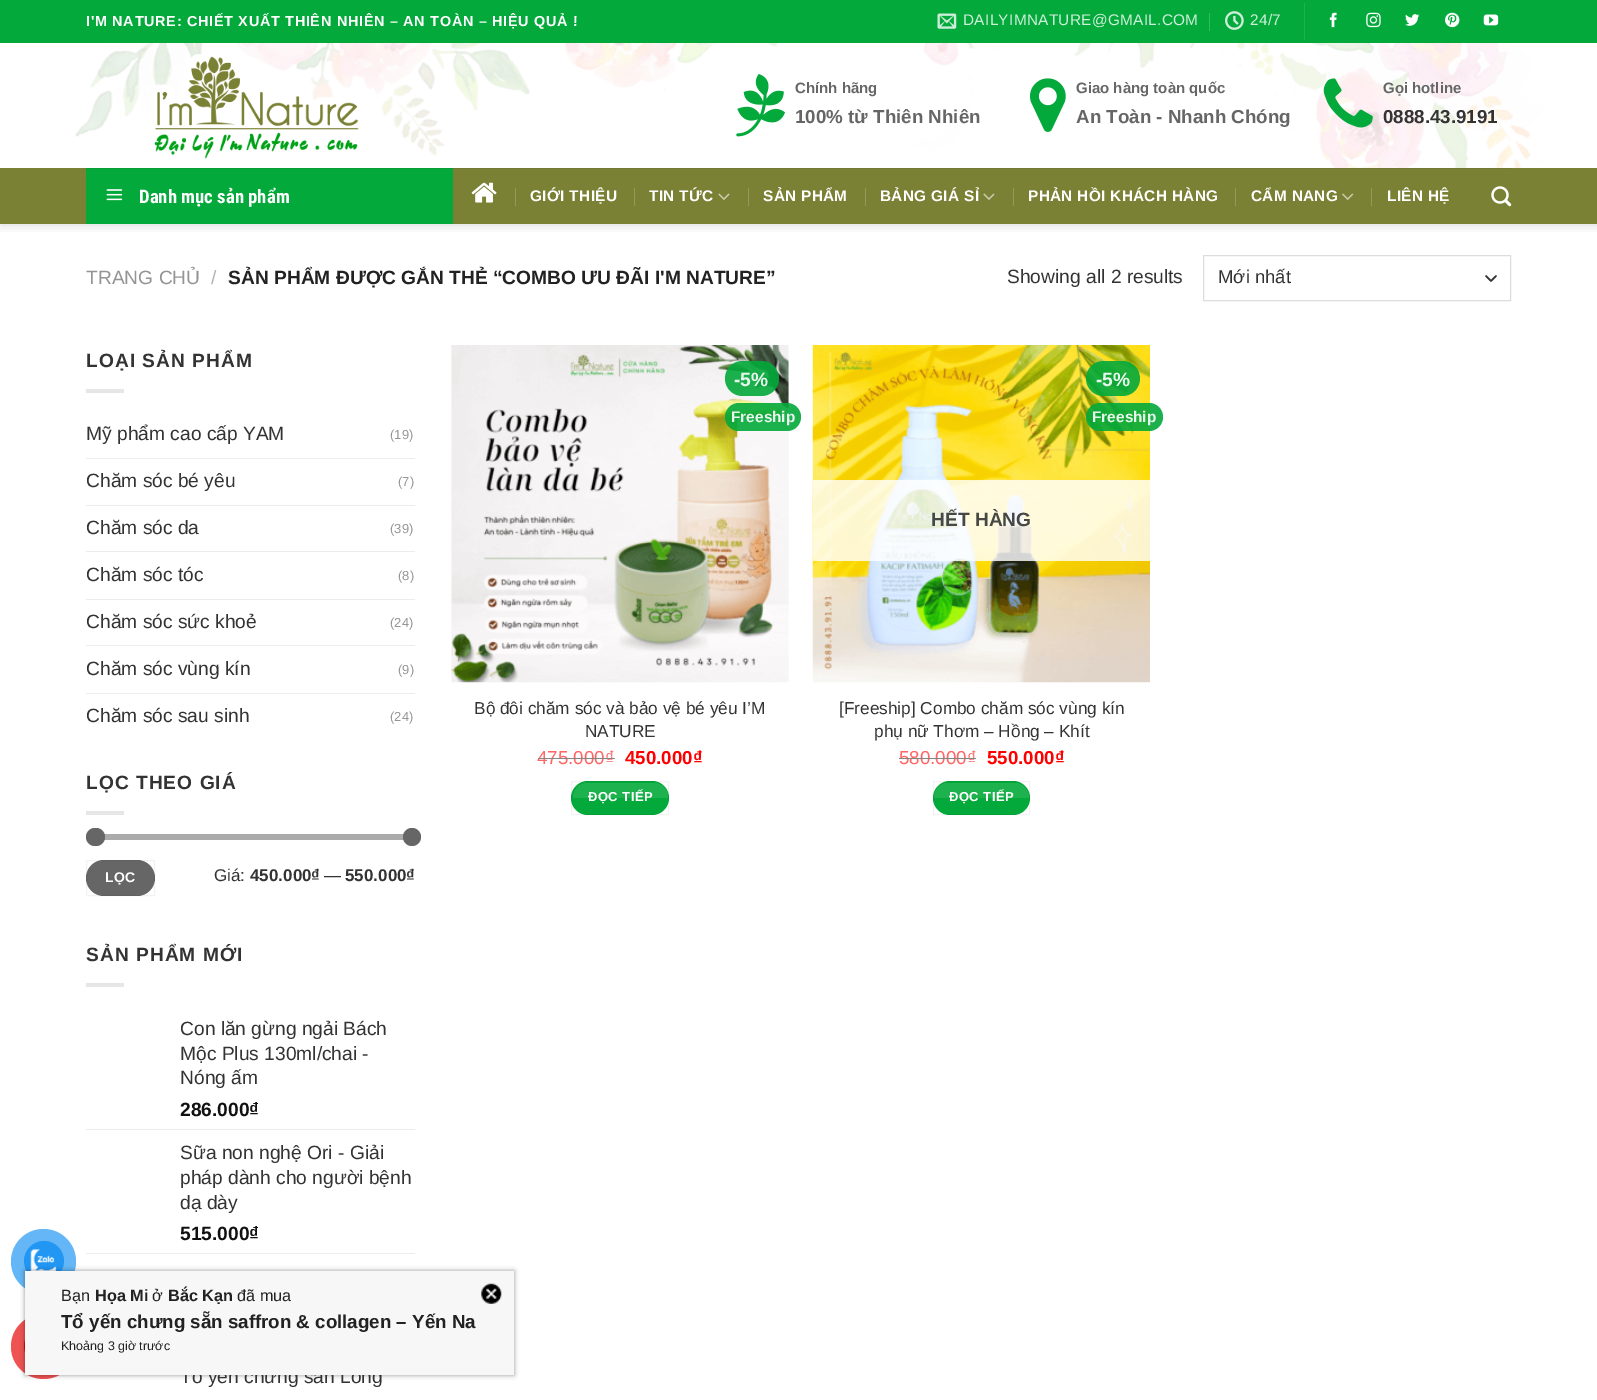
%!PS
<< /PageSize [1597 1400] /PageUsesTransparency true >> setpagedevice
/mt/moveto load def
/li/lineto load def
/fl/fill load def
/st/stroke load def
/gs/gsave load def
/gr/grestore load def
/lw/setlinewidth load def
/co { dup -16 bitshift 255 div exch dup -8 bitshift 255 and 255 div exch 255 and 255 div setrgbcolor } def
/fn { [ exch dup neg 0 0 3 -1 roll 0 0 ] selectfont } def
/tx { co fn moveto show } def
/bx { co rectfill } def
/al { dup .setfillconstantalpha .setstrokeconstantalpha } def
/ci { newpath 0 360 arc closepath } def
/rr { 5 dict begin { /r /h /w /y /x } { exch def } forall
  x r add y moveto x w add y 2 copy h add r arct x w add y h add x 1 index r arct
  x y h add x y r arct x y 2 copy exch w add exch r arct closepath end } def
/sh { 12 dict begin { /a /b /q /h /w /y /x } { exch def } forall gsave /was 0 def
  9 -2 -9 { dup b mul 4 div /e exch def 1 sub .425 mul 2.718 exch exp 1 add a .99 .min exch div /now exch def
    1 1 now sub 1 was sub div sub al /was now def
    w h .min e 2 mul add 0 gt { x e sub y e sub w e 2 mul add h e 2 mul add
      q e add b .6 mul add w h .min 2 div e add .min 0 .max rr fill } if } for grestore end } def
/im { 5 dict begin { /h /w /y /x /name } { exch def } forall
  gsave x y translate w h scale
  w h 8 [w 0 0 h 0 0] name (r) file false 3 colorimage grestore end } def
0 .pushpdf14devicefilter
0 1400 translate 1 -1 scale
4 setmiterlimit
0 0 1597 1400 16#FFFFFF bx
16#64B6F7 co
43.5 1261.5 32.5 ci fl
16#2196F3 co
44 1261 20 ci fl
(media/1.raw) 30 1249 27 22 im
16#EE5252 co
43.5 1346.5 32.5 ci fl
16#E60808 co
44 1346 20 ci fl
gs
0 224 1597 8 rectclip
16#000000 co
1 1 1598 224 0 6 .15 sh
gr
0 0 1597 43 16#03A93A bx
(media/2.raw) 937 13 20 16 im
1209 13 1 18 16#35BA61 bx
(media/3.raw) 1225 11 19 19 im
1304 3 1 37 16#1CB24E bx
(media/4.raw) 1329 12 8 16 im
(media/5.raw) 1366 12 15 16 im
(media/6.raw) 1405 14 15 12 im
(media/7.raw) 1445 12 15 16 im
(media/8.raw) 1483 14 16 12 im
(media/9.raw) 50 43 1499 125 im
0.86 al
74 43 1475 125 16#FFFFFF bx
1 al
(media/10.raw) 154 54 205 105 im
(media/11.raw) 736 74 50 63 im
(media/12.raw) 1030 78 36 54 im
(media/13.raw) 1323 78 50 50 im
0 168 1597 56 16#7A8034 bx
86 168 367 56 16#03A93A bx
0.1 al
86 168 1425 1 16#333333 bx
1 al
(media/14.raw) 106 189 17 12 im
(media/15.raw) 471 182 26 21 im
515 188 1 18 16#95995D bx
634 188 1 18 16#95995D bx
(media/16.raw) 718 193 12 7 im
748 188 1 18 16#95995D bx
865 188 1 18 16#95995D bx
(media/16.raw) 983 193 12 7 im
1013 188 1 18 16#95995D bx
1235 188 1 18 16#95995D bx
(media/17.raw) 1342 193 12 7 im
1371 188 1 18 16#95995D bx
(media/18.raw) 1491 186 21 21 im
16#333333 co
1.7 lw
1 setlinecap
1 setlinejoin
1486 276 mt 1491 281 li 1496 276 li st
16#DDDDDD co
1 lw
0 setlinecap
0 setlinejoin
1203.5 255.5 307 45 rectstroke
86 389 38 4 16#E6E6E6 bx
86 458 329 1 16#ECECEC bx
86 505 329 1 16#ECECEC bx
86 551 329 1 16#ECECEC bx
86 599 329 1 16#ECECEC bx
86 645 329 1 16#ECECEC bx
86 693 329 1 16#ECECEC bx
86 811 38 4 16#E6E6E6 bx
16#F1F1F1 co
86 834 329 6 3 rr fl
0.5 al
16#666666 co
86 834 329 6 3 rr fl
1 al
86 828 19 18 9 rr fl
412 837 9 ci fl
86 860 69 36 18 rr fl
0.05 al
16#000000 co
86.5 860.5 68 35 rectstroke
1 al
86 983 38 4 16#E6E6E6 bx
86 1129 329 1 16#ECECEC bx
86 1253 329 1 16#ECECEC bx
(media/19.raw) 451 345 338 338 im
0.9 al
16#03A93A co
725 361 54 35 17.5 rr fl
725 403 76 28 14 rr fl
1 al
571 781 98 34 17 rr fl
0.05 al
16#000000 co
571.5 781.5 97 33 rectstroke
gs
573 783 95 31 15.5 rr clip newpath
0.1 al
573 783 95 15 16#FFFFFF bx
gr
1 al
(media/20.raw) 812 345 338 338 im
0.9 al
16#03A93A co
1086 361 54 35 17.5 rr fl
1086 403 77 28 14 rr fl
0.81 al
813 480 337 81 16#FFFFFF bx
1 al
16#03A93A co
933 781 97 34 17 rr fl
0.05 al
16#000000 co
933.5 781.5 96 33 rectstroke
gs
934 783 95 31 15.5 rr clip newpath
0.1 al
934 783 95 15 16#FFFFFF bx
gr
1 al
25 1271 489 104 0 2.5 .4 sh
/LiberationSans-Bold 14.4 fn
16#FFFFFF co
86 26 mt .72 0 (I'M NATURE: CHIẾT XUẤT THIÊN NHIÊN – AN TOÀN – HIỆU QUẢ !) ashow
/LiberationSans-Regular 15.4 fn
16#CDEED8 co
963 25 mt .3 0 (DAILYIMNATURE@GMAIL.COM) ashow
1250 25 mt .3 0 (24/7) ashow
(Chính hãng) 795 93 /LiberationSans-Bold 15 16#666666 tx
(100% từ Thiên Nhiên) 795 123 /LiberationSans-Bold 18.75 16#666666 tx
(Giao hàng toàn quốc) 1076 93 /LiberationSans-Bold 15 16#666666 tx
(An Toàn - Nhanh Chóng) 1076 123 /LiberationSans-Bold 18.75 16#666666 tx
(Gọi hotline) 1383 93 /LiberationSans-Bold 15 16#666666 tx
(0888.43.9191) 1383 123 /LiberationSans-Bold 18.75 16#333333 tx
(Danh mục sản phẩm) 139 203 /RobotoCondensed-Bold 18.75 16#FFFFFF tx
/LiberationSans-Bold 15.4 fn
530 201 mt .3 0 (GIỚI THIỆU) ashow
649 201 mt .3 0 (TIN TỨC) ashow
763 201 mt .3 0 (SẢN PHẨM) ashow
880 201 mt .3 0 (BẢNG GIÁ SỈ) ashow
1028 201 mt .3 0 (PHẢN HỒI KHÁCH HÀNG) ashow
1251 201 mt .3 0 (CẨM NANG) ashow
1387 201 mt .3 0 (LIÊN HỆ) ashow
(TRANG CHỦ) 86 284 /LiberationSans-Regular 19.2 16#949494 tx
(/) 211 284 /LiberationSans-Regular 19.2 16#B2B2B2 tx
(SẢN PHẨM ĐƯỢC GẮN THẺ “COMBO ƯU ĐÃI I'M NATURE”) 228 284 /LiberationSans-Bold 19.2 16#222222 tx
(Showing all 2 results) 1007 283 /LiberationSans-Regular 19.2 16#333333 tx
(Mới nhất) 1218 283 /LiberationSans-Regular 18.5 16#333333 tx
/LiberationSans-Bold 19.2 fn
86 367 mt 1 0 (LOẠI SẢN PHẨM) ashow
(Mỹ phẩm cao cấp YAM) 86 440 /LiberationSans-Regular 19.2 16#333333 tx
(\(19\)) 390 439 /LiberationSans-Regular 13 16#949494 tx
(Chăm sóc bé yêu) 86 487 /LiberationSans-Regular 19.2 16#333333 tx
(\(7\)) 398 486 /LiberationSans-Regular 13 16#949494 tx
(Chăm sóc da) 86 534 /LiberationSans-Regular 19.2 16#333333 tx
(\(39\)) 390 533 /LiberationSans-Regular 13 16#949494 tx
(Chăm sóc tóc) 86 581 /LiberationSans-Regular 19.2 16#333333 tx
(\(8\)) 398 580 /LiberationSans-Regular 13 16#949494 tx
(Chăm sóc sức khoẻ) 86 628 /LiberationSans-Regular 19.2 16#333333 tx
(\(24\)) 390 627 /LiberationSans-Regular 13 16#949494 tx
(Chăm sóc vùng kín) 86 675 /LiberationSans-Regular 19.2 16#333333 tx
(\(9\)) 398 674 /LiberationSans-Regular 13 16#949494 tx
(Chăm sóc sau sinh) 86 722 /LiberationSans-Regular 19.2 16#333333 tx
(\(24\)) 390 721 /LiberationSans-Regular 13 16#949494 tx
/LiberationSans-Bold 19.2 fn
16#333333 co
86 789 mt 1 0 (LỌC THEO GIÁ) ashow
/LiberationSans-Bold 14 fn
16#FFFFFF co
105 882 mt .5 0 (LỌC) ashow
(Giá:) 214 881 /LiberationSans-Regular 17 16#333333 tx
(450.000₫) 250 881 /LiberationSans-Bold 17 16#333333 tx
(—) 324 881 /LiberationSans-Regular 17 16#333333 tx
(550.000₫) 345 881 /LiberationSans-Bold 17 16#333333 tx
/LiberationSans-Bold 19.2 fn
86 961 mt 1 0 (SẢN PHẨM MỚI) ashow
(Con lăn gừng ngải Bách) 180 1035 /LiberationSans-Regular 19.2 16#333333 tx
(Mộc Plus 130ml/chai -) 180 1060 /LiberationSans-Regular 19.2 16#333333 tx
(Nóng ấm) 180 1084 /LiberationSans-Regular 19.2 16#333333 tx
(286.000₫) 180 1116 /LiberationSans-Bold 19.2 16#111111 tx
(Sữa non nghệ Ori - Giải) 180 1159 /LiberationSans-Regular 19.2 16#333333 tx
(pháp dành cho người bệnh) 180 1184 /LiberationSans-Regular 19.2 16#333333 tx
(dạ dày) 180 1209 /LiberationSans-Regular 19.2 16#333333 tx
(515.000₫) 180 1240 /LiberationSans-Bold 19.2 16#111111 tx
(Tổ yến chưng sẵn Long) 180 1383 /LiberationSans-Regular 19.2 16#333333 tx
(-5%) 734 386 /LiberationSans-Bold 19.2 16#E8F7ED tx
(Freeship) 731 422 /LiberationSans-Bold 15.4 16#E8F7ED tx
(Bộ đôi chăm sóc và bảo vệ bé yêu I’M) 474 714 /LiberationSans-Regular 17.25 16#333333 tx
(NATURE) 585 737 /LiberationSans-Regular 17.25 16#333333 tx
(475.000₫) 537 764 /LiberationSans-Regular 18.75 16#FF6666 tx
538 758 77 1 16#858585 bx
(450.000₫) 625 764 /LiberationSans-Bold 18.75 16#FF0000 tx
/LiberationSans-Bold 13 fn
16#FFFFFF co
588 801 mt .5 0 (ĐỌC TIẾP) ashow
(-5%) 1096 386 /LiberationSans-Bold 19.2 16#E8F7ED tx
(Freeship) 1092 422 /LiberationSans-Bold 15.4 16#E8F7ED tx
(HẾT HÀNG) 931 526 /LiberationSans-Bold 19.2 16#474745 tx
([Freeship] Combo chăm sóc vùng kín) 839 714 /LiberationSans-Regular 17.25 16#333333 tx
(phụ nữ Thơm – Hồng – Khít) 874 737 /LiberationSans-Regular 17.25 16#333333 tx
(580.000₫) 899 764 /LiberationSans-Regular 18.75 16#FF6666 tx
899 758 77 1 16#858585 bx
(550.000₫) 987 764 /LiberationSans-Bold 18.75 16#FF0000 tx
/LiberationSans-Bold 13 fn
16#FFFFFF co
949 801 mt .5 0 (ĐỌC TIẾP) ashow
25 1271 489 104 16#F7F7F7 bx
(Bạn) 61 1301 /LiberationSans-Regular 16.25 16#222222 tx
(Họa Mi) 95 1301 /LiberationSans-Bold 16.25 16#222222 tx
(ở) 152 1301 /LiberationSans-Regular 16.25 16#222222 tx
(Bắc Kạn) 168 1301 /LiberationSans-Bold 16.25 16#222222 tx
(đã mua) 237 1301 /LiberationSans-Regular 16.25 16#222222 tx
(Tổ yến chưng sẵn saffron & collagen – Yến Na) 61 1328 /LiberationSans-Bold 18.75 16#222222 tx
(Khoảng 3 giờ trước) 61 1350 /LiberationSans-Regular 12.5 16#222222 tx
(media/21.raw) 481 1283 21 21 im
.poppdf14devicefilter showpage
